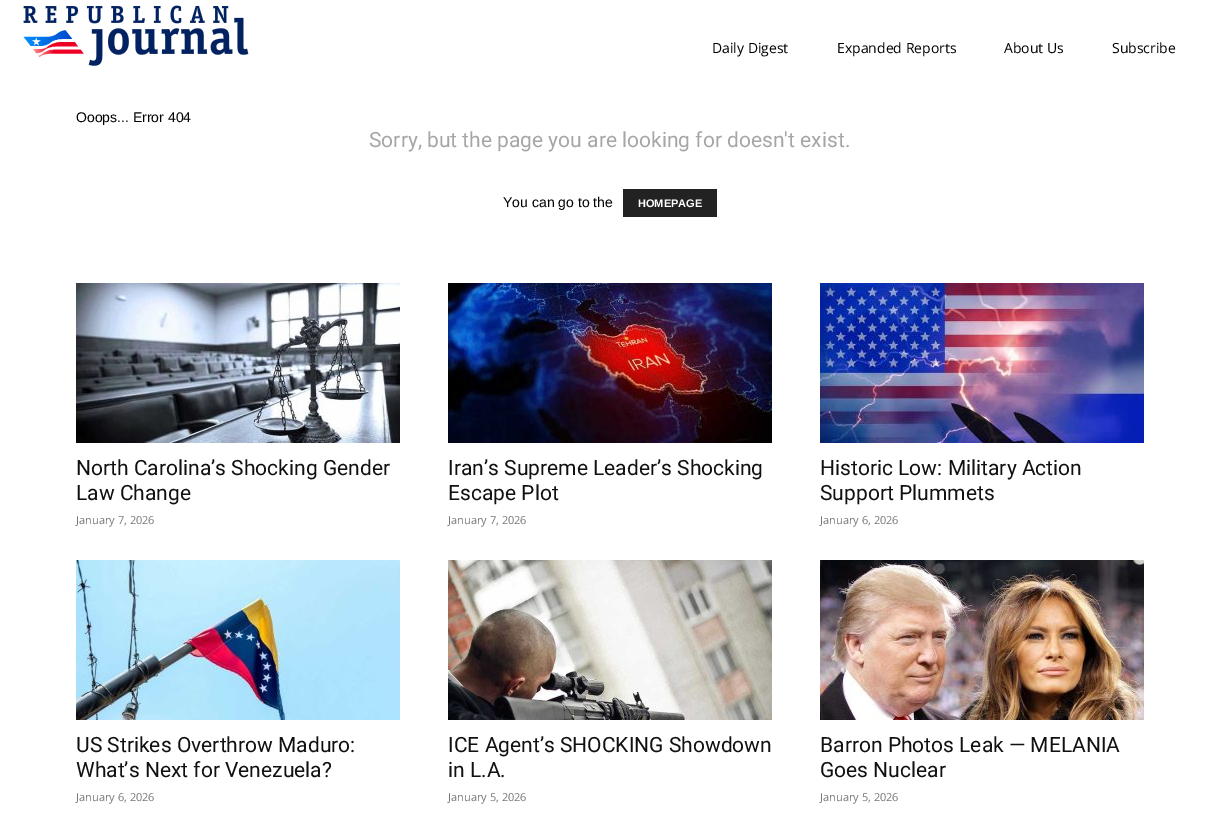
%!PS
<< /PageSize [1220 833] >> setpagedevice
/co { dup -16 bitshift 255 div exch dup -8 bitshift 255 and 255 div exch 255 and 255 div setrgbcolor } def
/fn { [ exch dup neg 0 0 3 -1 roll 0 0 ] selectfont } def
/tx { co fn moveto show } def
/bx { co rectfill } def
/im { 5 dict begin { /h /w /y /x /name } { exch def } forall
  gsave x y translate w h scale
  w h 8 [w 0 0 h 0 0] name (r) file false 3 colorimage grestore end } def
0 833 translate 1 -1 scale
4 setmiterlimit
0 0 1220 833 16#FFFFFF bx
(media/1.raw) 23 5 226 61 im
623 189 94 28 16#222222 bx
(media/2.raw) 76 283 324 160 im
(media/3.raw) 448 283 324 160 im
(media/4.raw) 820 283 324 160 im
(media/5.raw) 76 560 324 160 im
(media/6.raw) 448 560 324 160 im
(media/7.raw) 820 560 324 160 im
(Daily Digest) 712 53 /OpenSans-Regular 14 16#000000 tx
(Expanded Reports) 837 53 /OpenSans-Regular 14 16#000000 tx
(About Us) 1004 53 /OpenSans-Regular 14 16#000000 tx
(Subscribe) 1112 53 /OpenSans-Regular 14 16#000000 tx
(Ooops... Error 404) 76 122 /LiberationSans-Regular 14 16#000000 tx
(Sorry, but the page you are looking for doesn't exist.) 369 147 /Roboto-Regular 21 16#A6A6A6 tx
(You can go to the) 503 207 /LiberationSans-Regular 14 16#000000 tx
(HOMEPAGE) 638 207 /LiberationSans-Bold 11 16#FFFFFF tx
(North Carolina’s Shocking Gender) 76 475 /Roboto-Regular 21 16#111111 tx
(Law Change) 76 500 /Roboto-Regular 21 16#111111 tx
(January 7, 2026) 76 524 /OpenSans-Regular 11 16#767676 tx
(Iran’s Supreme Leader’s Shocking) 448 475 /Roboto-Regular 21 16#111111 tx
(Escape Plot) 448 500 /Roboto-Regular 21 16#111111 tx
(January 7, 2026) 448 524 /OpenSans-Regular 11 16#767676 tx
(Historic Low: Military Action) 820 475 /Roboto-Regular 21 16#111111 tx
(Support Plummets) 820 500 /Roboto-Regular 21 16#111111 tx
(January 6, 2026) 820 524 /OpenSans-Regular 11 16#767676 tx
(US Strikes Overthrow Maduro:) 76 752 /Roboto-Regular 21 16#111111 tx
(What’s Next for Venezuela?) 76 777 /Roboto-Regular 21 16#111111 tx
(January 6, 2026) 76 801 /OpenSans-Regular 11 16#767676 tx
(ICE Agent’s SHOCKING Showdown) 448 752 /Roboto-Regular 21 16#111111 tx
(in L.A.) 448 777 /Roboto-Regular 21 16#111111 tx
(January 5, 2026) 448 801 /OpenSans-Regular 11 16#767676 tx
(Barron Photos Leak — MELANIA) 820 752 /Roboto-Regular 21 16#111111 tx
(Goes Nuclear) 820 777 /Roboto-Regular 21 16#111111 tx
(January 5, 2026) 820 801 /OpenSans-Regular 11 16#767676 tx
showpage
